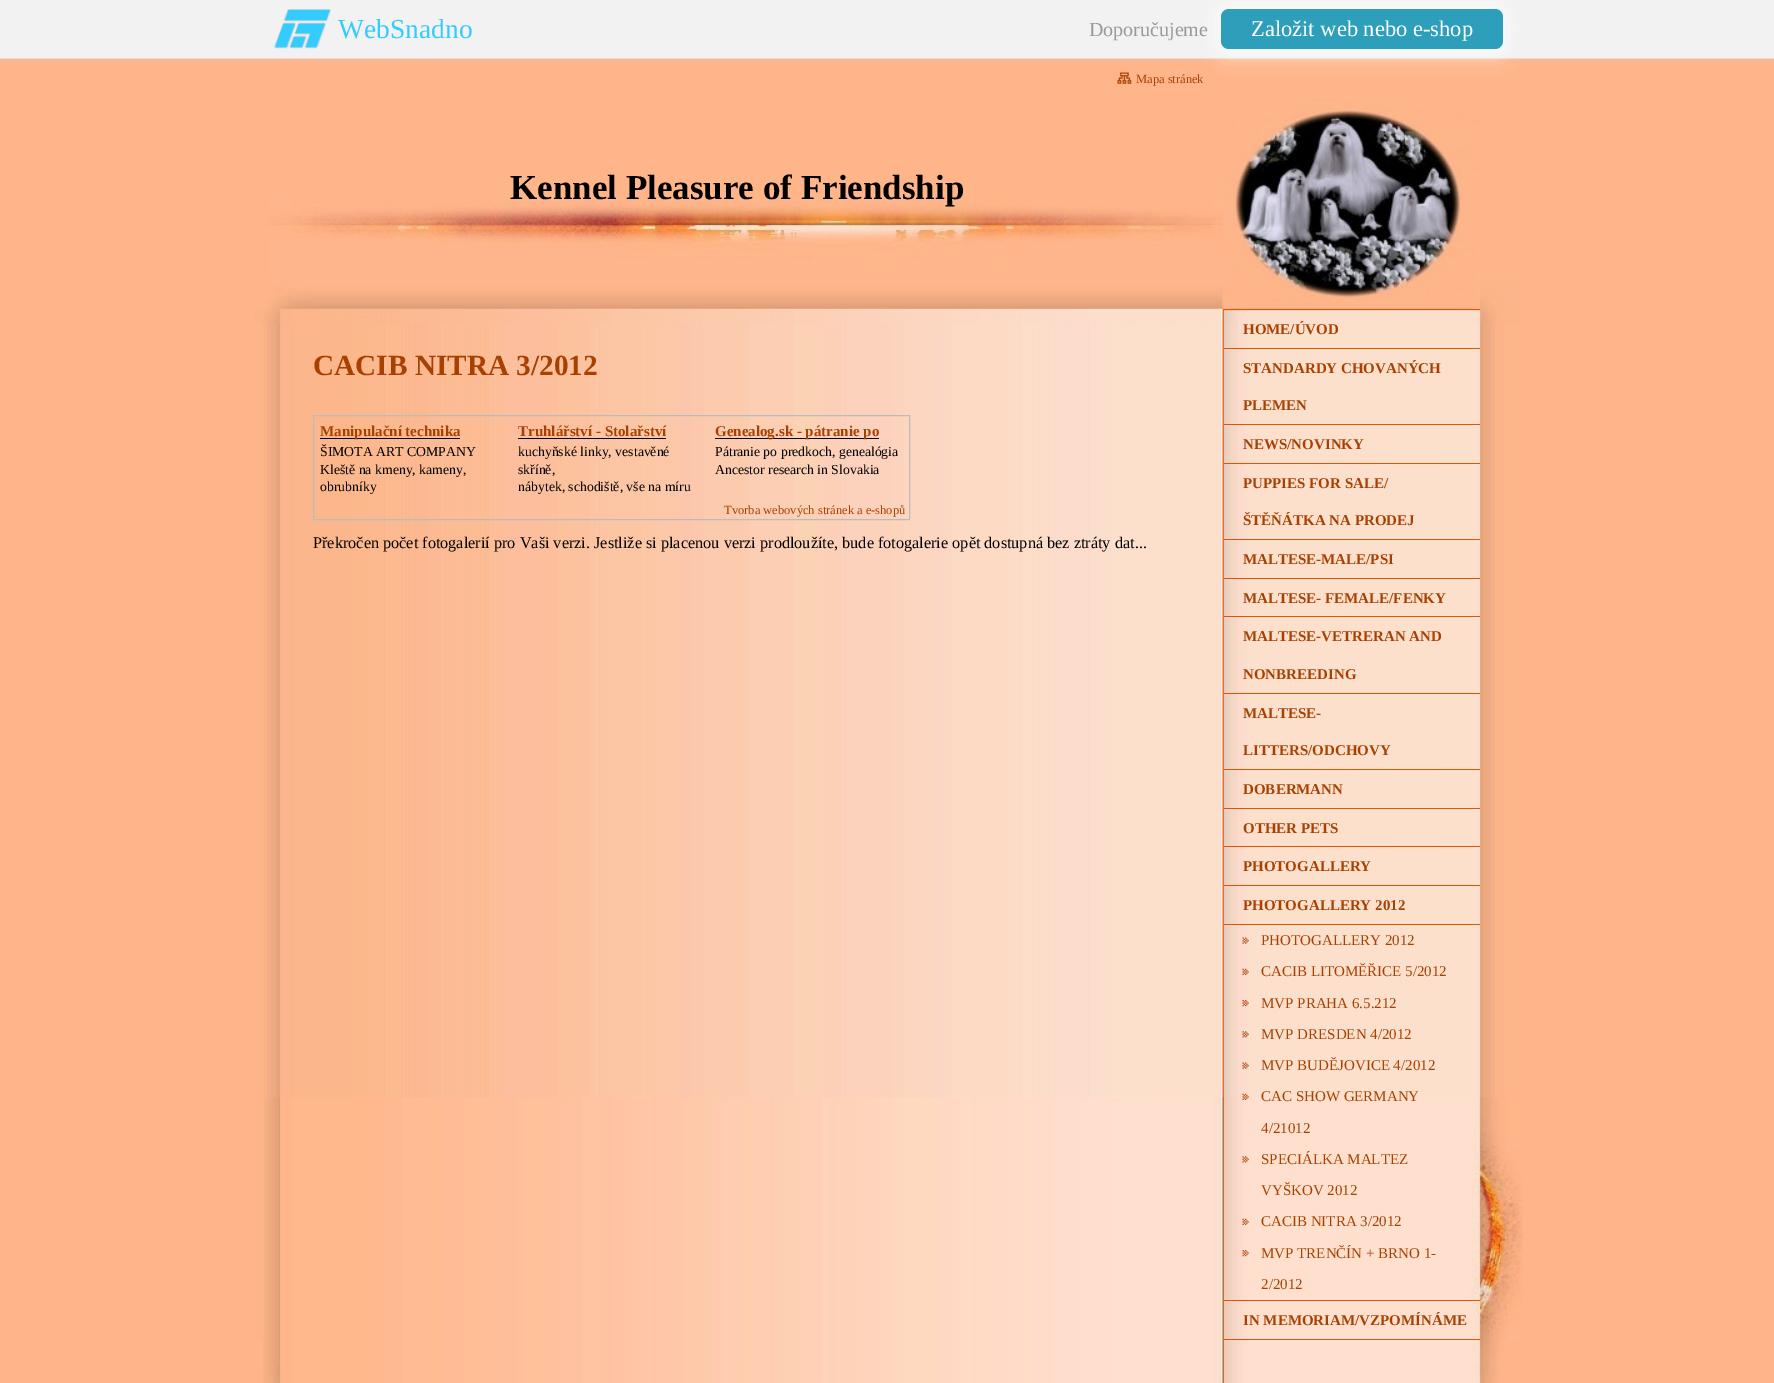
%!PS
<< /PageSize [1774 1383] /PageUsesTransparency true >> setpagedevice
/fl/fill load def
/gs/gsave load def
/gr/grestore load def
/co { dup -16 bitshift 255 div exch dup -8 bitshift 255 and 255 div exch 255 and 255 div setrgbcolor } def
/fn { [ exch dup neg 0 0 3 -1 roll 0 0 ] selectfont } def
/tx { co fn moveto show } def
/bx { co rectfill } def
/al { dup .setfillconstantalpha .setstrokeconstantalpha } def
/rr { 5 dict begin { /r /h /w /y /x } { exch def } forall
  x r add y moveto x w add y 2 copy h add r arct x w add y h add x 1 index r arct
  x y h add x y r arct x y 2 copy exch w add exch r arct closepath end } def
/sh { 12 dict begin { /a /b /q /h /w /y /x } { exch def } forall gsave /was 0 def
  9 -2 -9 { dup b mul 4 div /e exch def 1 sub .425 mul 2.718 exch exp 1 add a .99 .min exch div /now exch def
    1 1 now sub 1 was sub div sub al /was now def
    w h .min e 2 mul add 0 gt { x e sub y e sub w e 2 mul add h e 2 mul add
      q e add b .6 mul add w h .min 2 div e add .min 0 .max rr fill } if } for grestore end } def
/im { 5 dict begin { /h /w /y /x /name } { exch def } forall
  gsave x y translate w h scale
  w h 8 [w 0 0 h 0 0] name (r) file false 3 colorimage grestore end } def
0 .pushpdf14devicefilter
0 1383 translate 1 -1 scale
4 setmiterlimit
0 0 1774 1383 16#FFB58A bx
0 0 1774 58 16#F2F2F2 bx
0 58 1774 1 16#DDDDDD bx
(media/1.raw) 274 9 57 40 im
16#FFFFFF co
1216 4 292 50 13 10 .75 sh
16#2D9FBB co
1221 9 282 40 8 rr fl
(media/7.raw) 255 308 1250 1032 im
(media/9.raw) 254 308 1267 16 im
(media/2.raw) 267 199 956 110 im
(media/3.raw) 1117 72 15 12 im
(media/4.raw) 1222 279 258 30 im
(media/5.raw) 1222 99 258 210 im
(media/6.raw) 1480 280 41 29 im
(media/8.raw) 265 1097 1258 243 im
16#BBBBBB co
313.5 415.5 596 104 rectstroke
320 438 140 1 16#000000 bx
518 438 148 1 16#000000 bx
715 438 164 1 16#000000 bx
1224 1339 256 1 16#E05300 bx
1224 309 256 1 16#E05300 bx
1224 348 256 1 16#E05300 bx
1224 424 256 1 16#E05300 bx
1224 463 256 1 16#E05300 bx
1224 539 256 1 16#E05300 bx
1224 578 256 1 16#E05300 bx
1224 616 256 1 16#E05300 bx
1224 693 256 1 16#E05300 bx
1224 769 256 1 16#E05300 bx
1224 808 256 1 16#E05300 bx
1224 846 256 1 16#E05300 bx
1224 885 256 1 16#E05300 bx
1224 924 256 1 16#E05300 bx
(media/10.raw) 1242 937 7 7 im
(media/11.raw) 1242 968 7 7 im
(media/12.raw) 1242 1000 7 7 im
(media/13.raw) 1242 1031 7 7 im
(media/10.raw) 1242 1062 7 7 im
(media/14.raw) 1242 1093 7 7 im
(media/15.raw) 1242 1156 7 7 im
(media/16.raw) 1242 1218 7 7 im
(media/17.raw) 1242 1250 7 7 im
1224 1300 256 1 16#E05300 bx
(media/18.raw) 263 1340 1237 5 im
(media/19.raw) 263 1345 1237 38 im
(WebSnadno) 338 38 /LiberationSerif-Regular 27.5 16#34CBFF tx
(Doporučujeme) 1089 36 /LiberationSerif-Regular 20 16#999999 tx
(Založit web nebo e-shop) 1251 36 /LiberationSerif-Regular 22.5 16#FFFFFF tx
(Mapa stránek) 1136 83 /LiberationSerif-Regular 12.5 16#A84001 tx
(Kennel Pleasure of Friendship) 510 199 /LiberationSerif-Bold 35 16#000000 tx
(CACIB NITRA 3/2012) 313 375 /LiberationSerif-Bold 29.25 16#A84001 tx
(Manipulační technika) 320 436 /LiberationSerif-Bold 15 16#A84001 tx
(ŠIMOTA ART COMPANY) 320 456 /LiberationSerif-Regular 13.75 16#000000 tx
(Kleště na kmeny, kameny,) 320 474 /LiberationSerif-Regular 13.75 16#000000 tx
(obrubníky) 320 491 /LiberationSerif-Regular 13.75 16#000000 tx
gs
518 423 185 20 rectclip
(Truhlářství - Stolařství) 518 436 /LiberationSerif-Bold 15 16#A84001 tx
gr
(kuchyňské linky, vestavěné) 518 456 /LiberationSerif-Regular 13.75 16#000000 tx
(skříně,) 518 474 /LiberationSerif-Regular 13.75 16#000000 tx
(nábytek, schodiště, vše na míru) 518 491 /LiberationSerif-Regular 13.75 16#000000 tx
(Genealog.sk - pátranie po) 715 436 /LiberationSerif-Bold 15 16#A84001 tx
(Pátranie po predkoch, genealógia) 715 456 /LiberationSerif-Regular 13.75 16#000000 tx
(Ancestor research in Slovakia) 715 474 /LiberationSerif-Regular 13.75 16#000000 tx
(Tvorba webových stránek a e-shopů) 724 514 /LiberationSerif-Regular 12.5 16#A84001 tx
(Překročen počet fotogalerií pro Vaši verzi. Jestliže si placenou verzi prodloužíte, bude fotogalerie opět dostupná bez ztráty dat...) 313 548 /LiberationSerif-Regular 16.25 16#000000 tx
(HOME/ÚVOD) 1243 334 /LiberationSerif-Bold 15 16#A84001 tx
(STANDARDY CHOVANÝCH) 1243 373 /LiberationSerif-Bold 15 16#A84001 tx
(PLEMEN) 1243 410 /LiberationSerif-Bold 15 16#A84001 tx
(NEWS/NOVINKY) 1243 449 /LiberationSerif-Bold 15 16#A84001 tx
(PUPPIES FOR SALE/) 1243 488 /LiberationSerif-Bold 15 16#A84001 tx
(ŠTĚŇÁTKA NA PRODEJ) 1243 525 /LiberationSerif-Bold 15 16#A84001 tx
(MALTESE-MALE/PSI) 1243 564 /LiberationSerif-Bold 15 16#A84001 tx
(MALTESE- FEMALE/FENKY) 1243 603 /LiberationSerif-Bold 15 16#A84001 tx
(MALTESE-VETRERAN AND) 1243 641 /LiberationSerif-Bold 15 16#A84001 tx
(NONBREEDING) 1243 679 /LiberationSerif-Bold 15 16#A84001 tx
(MALTESE-) 1243 718 /LiberationSerif-Bold 15 16#A84001 tx
(LITTERS/ODCHOVY) 1243 755 /LiberationSerif-Bold 15 16#A84001 tx
(DOBERMANN) 1243 794 /LiberationSerif-Bold 15 16#A84001 tx
(OTHER PETS) 1243 833 /LiberationSerif-Bold 15 16#A84001 tx
(PHOTOGALLERY) 1243 871 /LiberationSerif-Bold 15 16#A84001 tx
(PHOTOGALLERY 2012) 1243 910 /LiberationSerif-Bold 15 16#A84001 tx
(PHOTOGALLERY 2012) 1261 945 /LiberationSerif-Regular 15 16#A84001 tx
(CACIB LITOMĚŘICE 5/2012) 1261 976 /LiberationSerif-Regular 15 16#A84001 tx
(MVP PRAHA 6.5.212) 1261 1008 /LiberationSerif-Regular 15 16#A84001 tx
(MVP DRESDEN 4/2012) 1261 1039 /LiberationSerif-Regular 15 16#A84001 tx
(MVP BUDĚJOVICE 4/2012) 1261 1070 /LiberationSerif-Regular 15 16#A84001 tx
(CAC SHOW GERMANY) 1261 1101 /LiberationSerif-Regular 15 16#A84001 tx
(4/21012) 1261 1133 /LiberationSerif-Regular 15 16#A84001 tx
(SPECIÁLKA MALTEZ) 1261 1164 /LiberationSerif-Regular 15 16#A84001 tx
(VYŠKOV 2012) 1261 1195 /LiberationSerif-Regular 15 16#A84001 tx
(CACIB NITRA 3/2012) 1261 1226 /LiberationSerif-Regular 15 16#A84001 tx
(MVP TRENČÍN + BRNO 1-) 1261 1258 /LiberationSerif-Regular 15 16#A84001 tx
(2/2012) 1261 1289 /LiberationSerif-Regular 15 16#A84001 tx
(IN MEMORIAM/VZPOMÍNÁME) 1243 1325 /LiberationSerif-Bold 15 16#A84001 tx
.poppdf14devicefilter showpage
